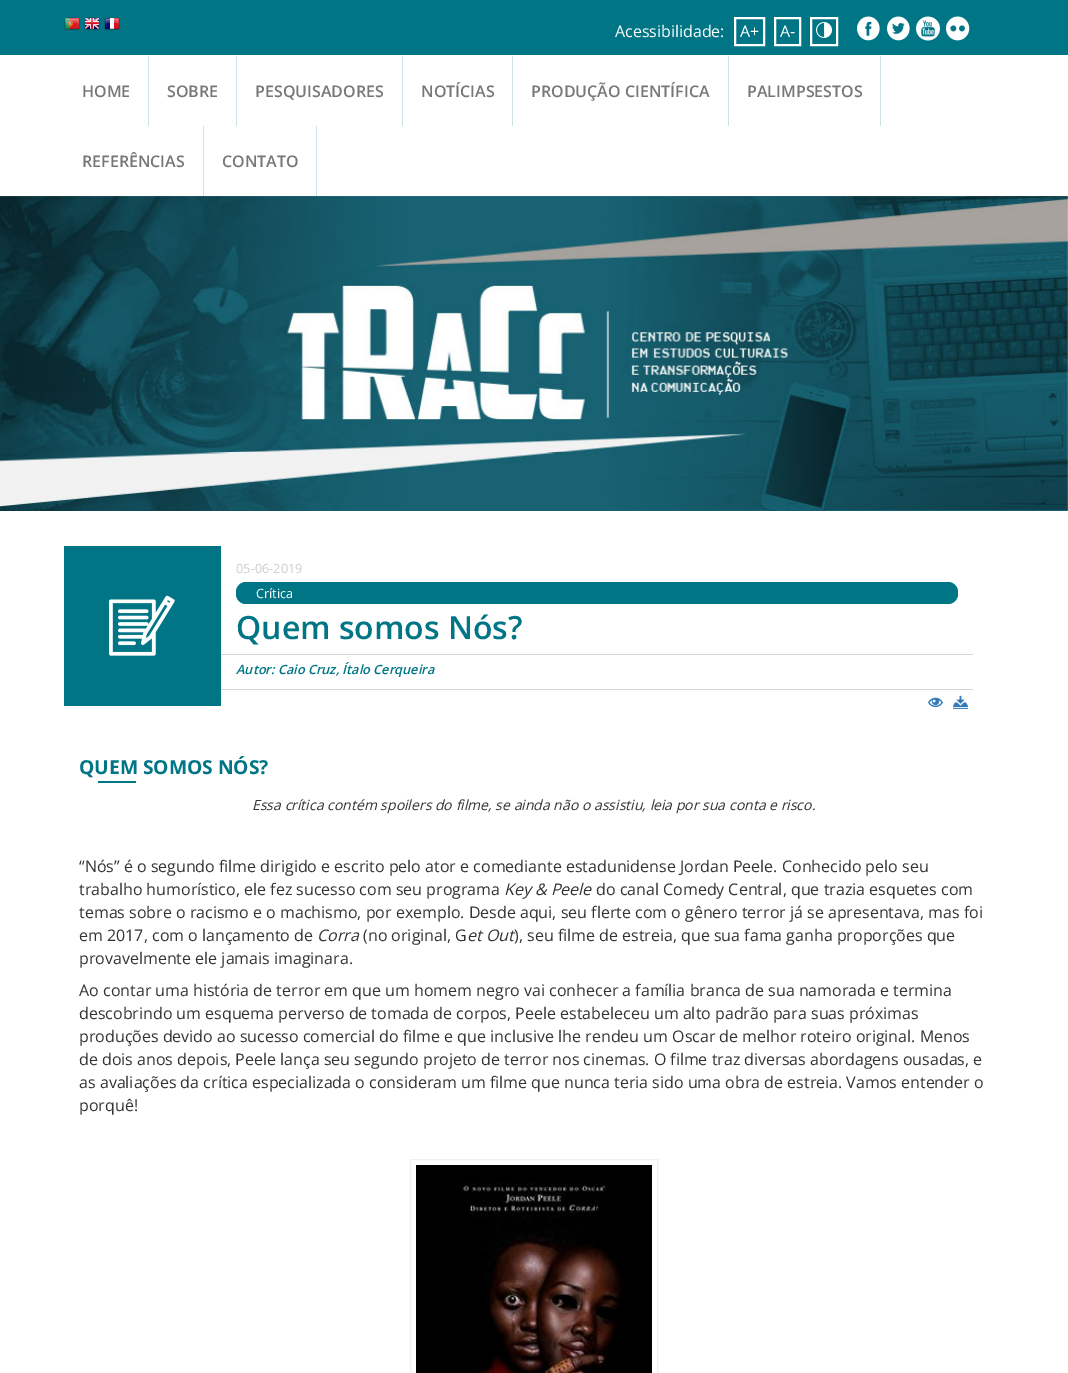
%!PS
<< /PageSize [1068 1373] >> setpagedevice
/fl/fill load def
/lw/setlinewidth load def
/co { dup -16 bitshift 255 div exch dup -8 bitshift 255 and 255 div exch 255 and 255 div setrgbcolor } def
/fn { [ exch dup neg 0 0 3 -1 roll 0 0 ] selectfont } def
/tx { co fn moveto show } def
/bx { co rectfill } def
/rr { 5 dict begin { /r /h /w /y /x } { exch def } forall
  x r add y moveto x w add y 2 copy h add r arct x w add y h add x 1 index r arct
  x y h add x y r arct x y 2 copy exch w add exch r arct closepath end } def
/im { 5 dict begin { /h /w /y /x /name } { exch def } forall
  gsave x y translate w h scale
  w h 8 [w 0 0 h 0 0] name (r) file false 3 colorimage grestore end } def
0 1373 translate 1 -1 scale
4 setmiterlimit
0 0 1068 1373 16#FFFFFF bx
0 0 1068 55 16#007585 bx
(media/1.raw) 64 17 16 14 im
(media/2.raw) 84 17 16 14 im
(media/3.raw) 104 17 16 14 im
16#FFFFFF co
2 lw
735 18 29 27 rectstroke
775 18 25 27 rectstroke
811 18 26 27 rectstroke
(media/4.raw) 816 22 16 16 im
(media/5.raw) 857 16 23 25 im
(media/6.raw) 887 16 23 25 im
(media/7.raw) 916 16 24 25 im
(media/8.raw) 946 16 24 25 im
148 56 1 70 16#CCE3E7 bx
236 56 1 70 16#CCE3E7 bx
402 56 1 70 16#CCE3E7 bx
512 56 1 70 16#CCE3E7 bx
728 56 1 70 16#CCE3E7 bx
880 56 1 70 16#CCE3E7 bx
203 126 1 70 16#CCE3E7 bx
316 126 1 70 16#CCE3E7 bx
(media/9.raw) 0 196 1068 315 im
64 546 157 160 16#007585 bx
(media/10.raw) 109 595 66 61 im
236 582 722 22 10 rr fl
221 654 752 1 16#D5D5D4 bx
221 689 752 1 16#D5D5D4 bx
(media/11.raw) 928 697 15 11 im
(media/12.raw) 953 695 15 14 im
98 781 38 2 16#007585 bx
16#F0F0F0 co
1 lw
410.5 1159.5 247 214 rectstroke
(media/13.raw) 416 1165 236 208 im
(Acessibilidade:) 615 37 /OpenSans-Regular 16 16#FFFFFF tx
(A+) 740 37 /OpenSans-Regular 16 16#FFFFFF tx
(A-) 780 37 /OpenSans-Regular 16 16#FFFFFF tx
(HOME) 82 97 /OpenSans-SemiBold 16 16#777777 tx
(SOBRE) 167 97 /OpenSans-SemiBold 16 16#777777 tx
(PESQUISADORES) 255 97 /OpenSans-SemiBold 16 16#777777 tx
(NOTÍCIAS) 421 97 /OpenSans-SemiBold 16 16#777777 tx
(PRODUÇÃO CIENTÍFICA) 531 97 /OpenSans-SemiBold 16 16#777777 tx
(PALIMPSESTOS) 747 97 /OpenSans-SemiBold 16 16#777777 tx
(REFERÊNCIAS) 82 167 /OpenSans-SemiBold 16 16#777777 tx
(CONTATO) 222 167 /OpenSans-SemiBold 16 16#777777 tx
(05-06-2019) 236 573 /OpenSans-Regular 12.75 16#CDCDCC tx
(Crítica) 256 598 /OpenSans-Regular 12.75 16#FFFFFF tx
(Quem somos Nós?) 236 639 /OpenSans-SemiBold 32 16#007585 tx
(Autor: Caio Cruz, Ítalo Cerqueira) 236 674 /OpenSans-SemiBoldItalic 12.75 16#007585 tx
(QUEM SOMOS NÓS?) 79 774 /OpenSans-Bold 19.25 16#007585 tx
(Essa crítica contém spoilers do filme, se ainda não o assistiu, leia por sua conta e risco.) 252 810 /OpenSans-Italic 14 16#333333 tx
(“Nós” é o segundo filme dirigido e escrito pelo ator e comediante estadunidense Jordan Peele. Conhecido pelo seu) 79 872 /OpenSans-Regular 16 16#333333 tx
(trabalho humorístico, ele fez sucesso com seu programa) 79 895 /OpenSans-Regular 16 16#333333 tx
(Key & Peele) 504 895 /OpenSans-Italic 16 16#333333 tx
(do canal Comedy Central, que trazia esquetes com) 596 895 /OpenSans-Regular 16 16#333333 tx
(temas sobre o racismo e o machismo, por exemplo. Desde aqui, seu flerte com o gênero terror já se apresentava, mas foi) 79 918 /OpenSans-Regular 16 16#333333 tx
(em 2017, com o lançamento de) 79 941 /OpenSans-Regular 16 16#333333 tx
(Corra) 317 941 /OpenSans-Italic 16 16#333333 tx
(\(no original, G) 363 941 /OpenSans-Regular 16 16#333333 tx
(et Out) 467 941 /OpenSans-Italic 16 16#333333 tx
(\), seu filme de estreia, que sua fama ganha proporções que) 514 941 /OpenSans-Regular 16 16#333333 tx
(provavelmente ele jamais imaginara.) 79 964 /OpenSans-Regular 16 16#333333 tx
(Ao contar uma história de terror em que um homem negro vai conhecer a família branca de sua namorada e termina) 79 996 /OpenSans-Regular 16 16#333333 tx
(descobrindo um esquema perverso de tomada de corpos, Peele estabeleceu um alto padrão para suas próximas) 79 1019 /OpenSans-Regular 16 16#333333 tx
(produções devido ao sucesso comercial do filme e que inclusive lhe rendeu um Oscar de melhor roteiro original. Menos) 79 1042 /OpenSans-Regular 16 16#333333 tx
(de dois anos depois, Peele lança seu segundo projeto de terror nos cinemas. O filme traz diversas abordagens ousadas, e) 79 1065 /OpenSans-Regular 16 16#333333 tx
(as avaliações da crítica especializada o consideram um filme que nunca teria sido uma obra de estreia. Vamos entender o) 79 1088 /OpenSans-Regular 16 16#333333 tx
(porquê!) 79 1111 /OpenSans-Regular 16 16#333333 tx
showpage
